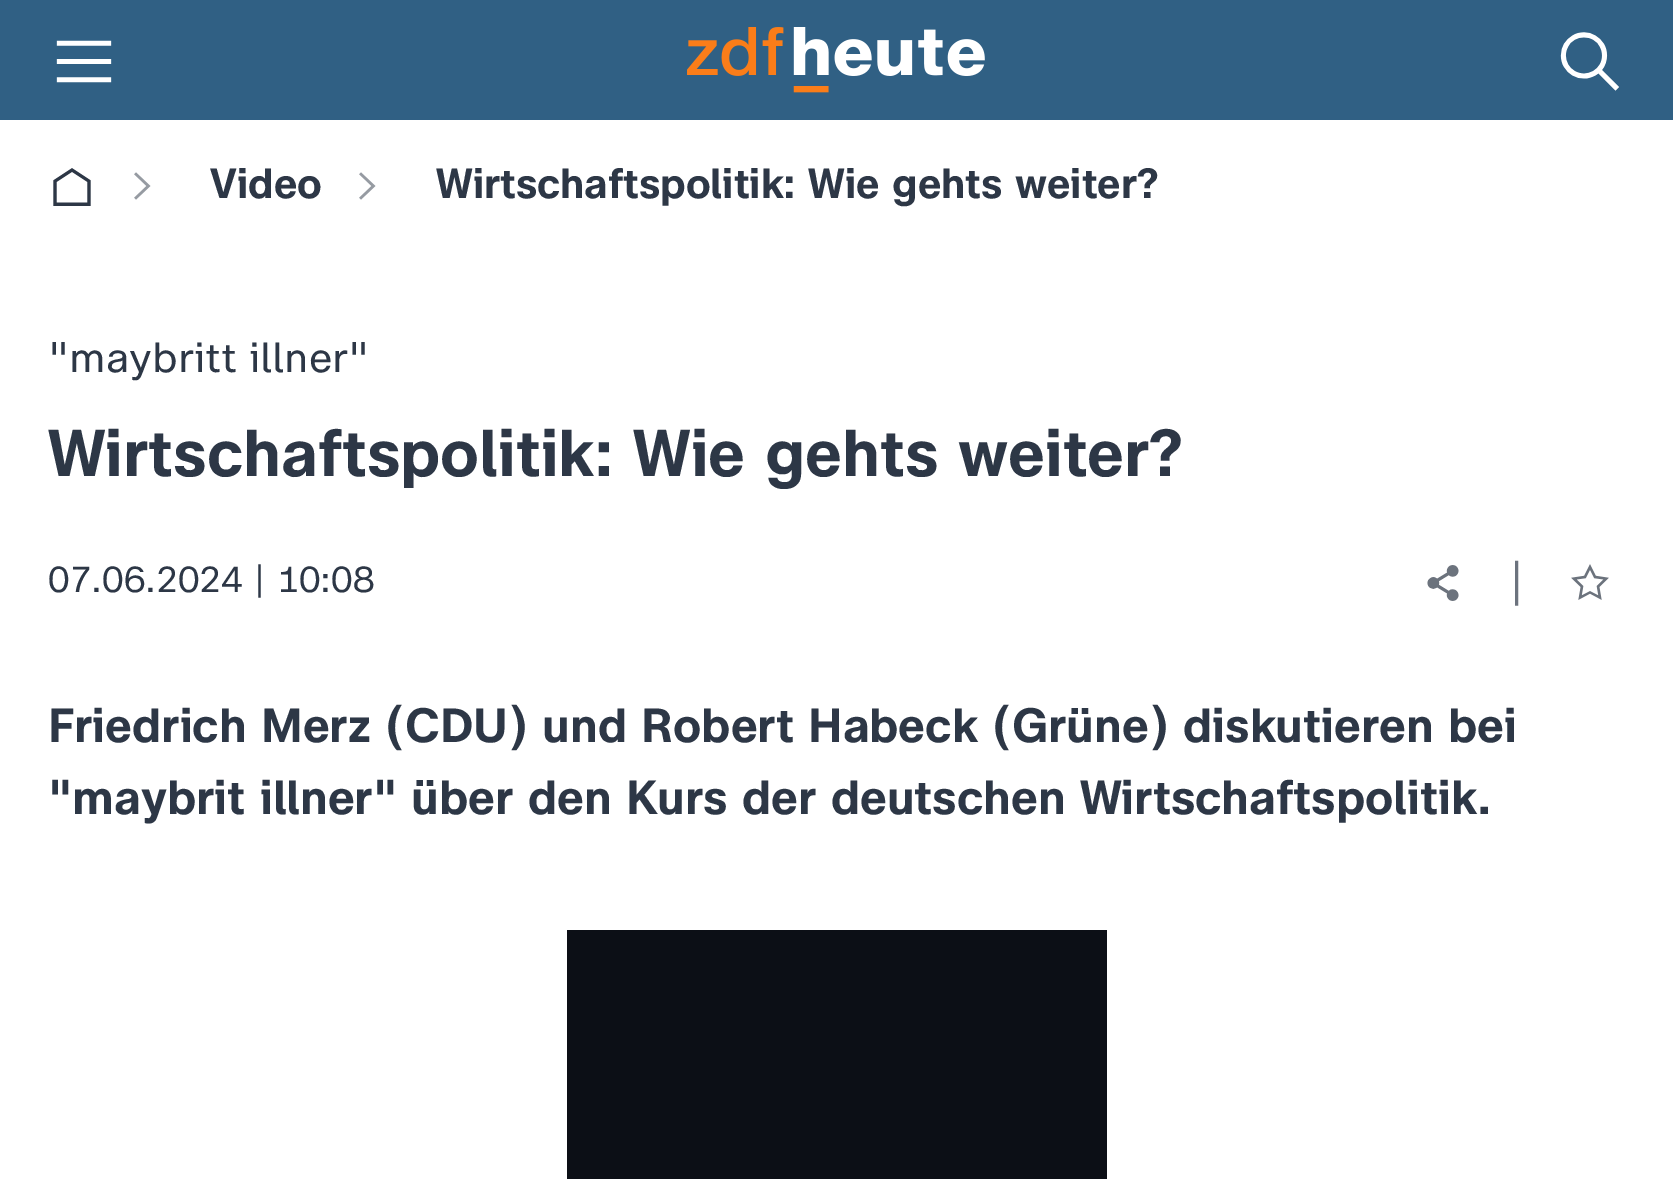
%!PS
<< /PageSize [1673 1179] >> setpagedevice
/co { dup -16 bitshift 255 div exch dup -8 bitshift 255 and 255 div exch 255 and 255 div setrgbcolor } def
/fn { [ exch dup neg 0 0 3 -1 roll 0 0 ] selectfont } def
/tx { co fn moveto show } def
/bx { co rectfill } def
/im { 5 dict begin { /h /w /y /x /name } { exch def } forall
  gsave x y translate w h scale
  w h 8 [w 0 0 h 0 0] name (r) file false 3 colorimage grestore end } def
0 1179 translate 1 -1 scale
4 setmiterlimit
0 0 1673 1179 16#FFFFFF bx
0 0 1673 120 16#306084 bx
(media/1.raw) 56 40 56 43 im
(media/2.raw) 687 27 298 66 im
(media/3.raw) 1560 32 59 59 im
(media/4.raw) 53 168 38 38 im
(media/5.raw) 134 172 17 28 im
(media/5.raw) 359 172 17 28 im
(media/6.raw) 1427 565 32 36 im
(media/7.raw) 1571 564 38 36 im
567 930 540 249 16#0C0F16 bx
(Video) 210 198 /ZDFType-Bold 42 16#2D3746 tx
(Wirtschaftspolitik: Wie gehts weiter?) 436 198 /ZDFType-Bold 42 16#2D3746 tx
("maybritt illner") 48 372 /ZDFType-Regular 42 16#2D3746 tx
(Wirtschaftspolitik: Wie gehts weiter?) 48 476 /ZDFType-Bold 66 16#2D3746 tx
(07.06.2024 | 10:08) 48 592 /ZDFType-Regular 36 16#2D3746 tx
(|) 1508 598 /ZDFType-Regular 48 16#6C737E tx
(Friedrich Merz \(CDU\) und Robert Habeck \(Grüne\) diskutieren bei) 48 742 /ZDFType-Bold 48 16#2D3746 tx
("maybrit illner" über den Kurs der deutschen Wirtschaftspolitik.) 48 814 /ZDFType-Bold 48 16#2D3746 tx
showpage
